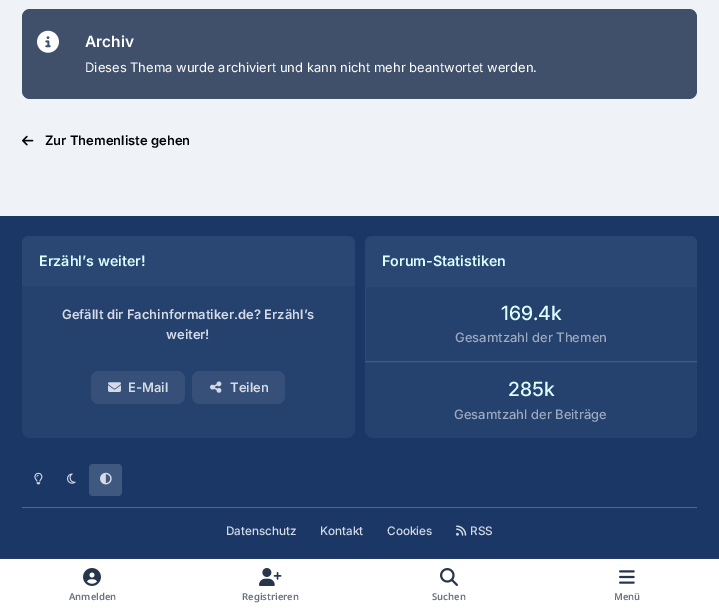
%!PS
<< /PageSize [719 614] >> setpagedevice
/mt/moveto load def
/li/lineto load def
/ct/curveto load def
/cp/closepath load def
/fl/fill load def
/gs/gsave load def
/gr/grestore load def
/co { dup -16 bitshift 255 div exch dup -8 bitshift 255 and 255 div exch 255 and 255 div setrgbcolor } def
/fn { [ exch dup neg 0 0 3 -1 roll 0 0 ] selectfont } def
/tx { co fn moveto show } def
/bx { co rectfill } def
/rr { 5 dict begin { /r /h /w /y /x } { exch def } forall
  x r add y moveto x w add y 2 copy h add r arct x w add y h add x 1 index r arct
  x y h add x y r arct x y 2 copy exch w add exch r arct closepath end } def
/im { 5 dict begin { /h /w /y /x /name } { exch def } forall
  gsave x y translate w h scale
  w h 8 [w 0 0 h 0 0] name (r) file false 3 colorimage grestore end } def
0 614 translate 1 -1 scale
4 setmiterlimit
0 0 719 614 16#EFF2F7 bx
16#40506B co
22 9 675 90 8 rr fl
(media/1.raw) 37 30 22 23 im
(media/2.raw) 22 135 12 11 im
0 216 719 342 16#1A3766 bx
16#25416E co
22 236 333 202 8 rr fl
16#2A4673 co
29 236 mt 348 236 li 352 236 355 239 355 243 ct 355 286 li 22 286 li 22 243 li 22 239 25 236 29 236 ct cp fl
16#37507A co
91 371 94 33 8 rr fl
(media/3.raw) 108 382 13 10 im
192 371 93 33 8 rr fl
(media/4.raw) 210 381 12 12 im
16#25416E co
365 236 332 202 8 rr fl
16#2A4673 co
372 236 mt 690 236 li 694 236 697 239 697 243 ct 697 286 li 365 286 li 365 243 li 365 239 368 236 372 236 ct cp fl
gs
365 286 332 152 rectclip
16#415C87 co
364.5 285.5 333 76 rectstroke
gr
(media/5.raw) 34 472 9 13 im
(media/6.raw) 67 473 9 11 im
16#3F5880 co
89 464 33 32 4 rr fl
(media/7.raw) 100 472 12 13 im
22 507 675 1 16#52688C bx
(media/8.raw) 456 525 11 11 im
0 558 719 1 16#243D67 bx
0 559 719 55 16#FFFFFF bx
(media/9.raw) 83 568 18 18 im
(media/10.raw) 259 568 23 18 im
(media/11.raw) 440 568 18 18 im
(media/12.raw) 619 570 16 14 im
(Archiv) 85 47 /Inter-SemiBold 15.5 16#FFFFFF tx
(Dieses Thema wurde archiviert und kann nicht mehr beantwortet werden.) 85 72 /Inter-Regular 13 16#FFFFFF tx
(Zur Themenliste gehen) 45 145 /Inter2-SemiBold 13 16#020305 tx
(Erzähl’s weiter!) 39 266 /Inter2-SemiBold 14.25 16#DBFFFF tx
(Gefällt dir Fachinformatiker.de? Erzähl’s) 62 319 /Inter2-SemiBold 13 16#D5DBE6 tx
(weiter!) 166 339 /Inter2-SemiBold 13 16#D5DBE6 tx
(E-Mail) 128 392 /Inter2-SemiBold 13 16#D5DBE6 tx
(Teilen) 230 392 /Inter2-SemiBold 13 16#D5DBE6 tx
(Forum-Statistiken) 382 266 /Inter2-SemiBold 14.25 16#DBFFFF tx
(169.4k) 501 320 /Inter2-Medium 19.5 16#DBFFFF tx
(Gesamtzahl der Themen) 455 342 /Inter-Medium 13 16#9CAABF tx
(285k) 508 396 /Inter2-Medium 19.5 16#DBFFFF tx
(Gesamtzahl der Beiträge) 454 419 /Inter-Medium 13 16#9CAABF tx
(Datenschutz) 226 535 /Inter-Medium 11.75 16#D5DBE6 tx
(Kontakt) 320 535 /Inter-Medium 11.75 16#D5DBE6 tx
(Cookies) 387 535 /Inter-Medium 11.75 16#D5DBE6 tx
(RSS) 470 535 /Inter-Medium 11.75 16#D5DBE6 tx
(Anmelden) 69 600 /NotoSans-SemiBold 9.5 16#697282 tx
(Registrieren) 242 600 /NotoSans-SemiBold 9.5 16#697282 tx
(Suchen) 432 600 /NotoSans-SemiBold 9.5 16#697282 tx
(Menü) 614 600 /NotoSans-SemiBold 9.5 16#697282 tx
showpage
